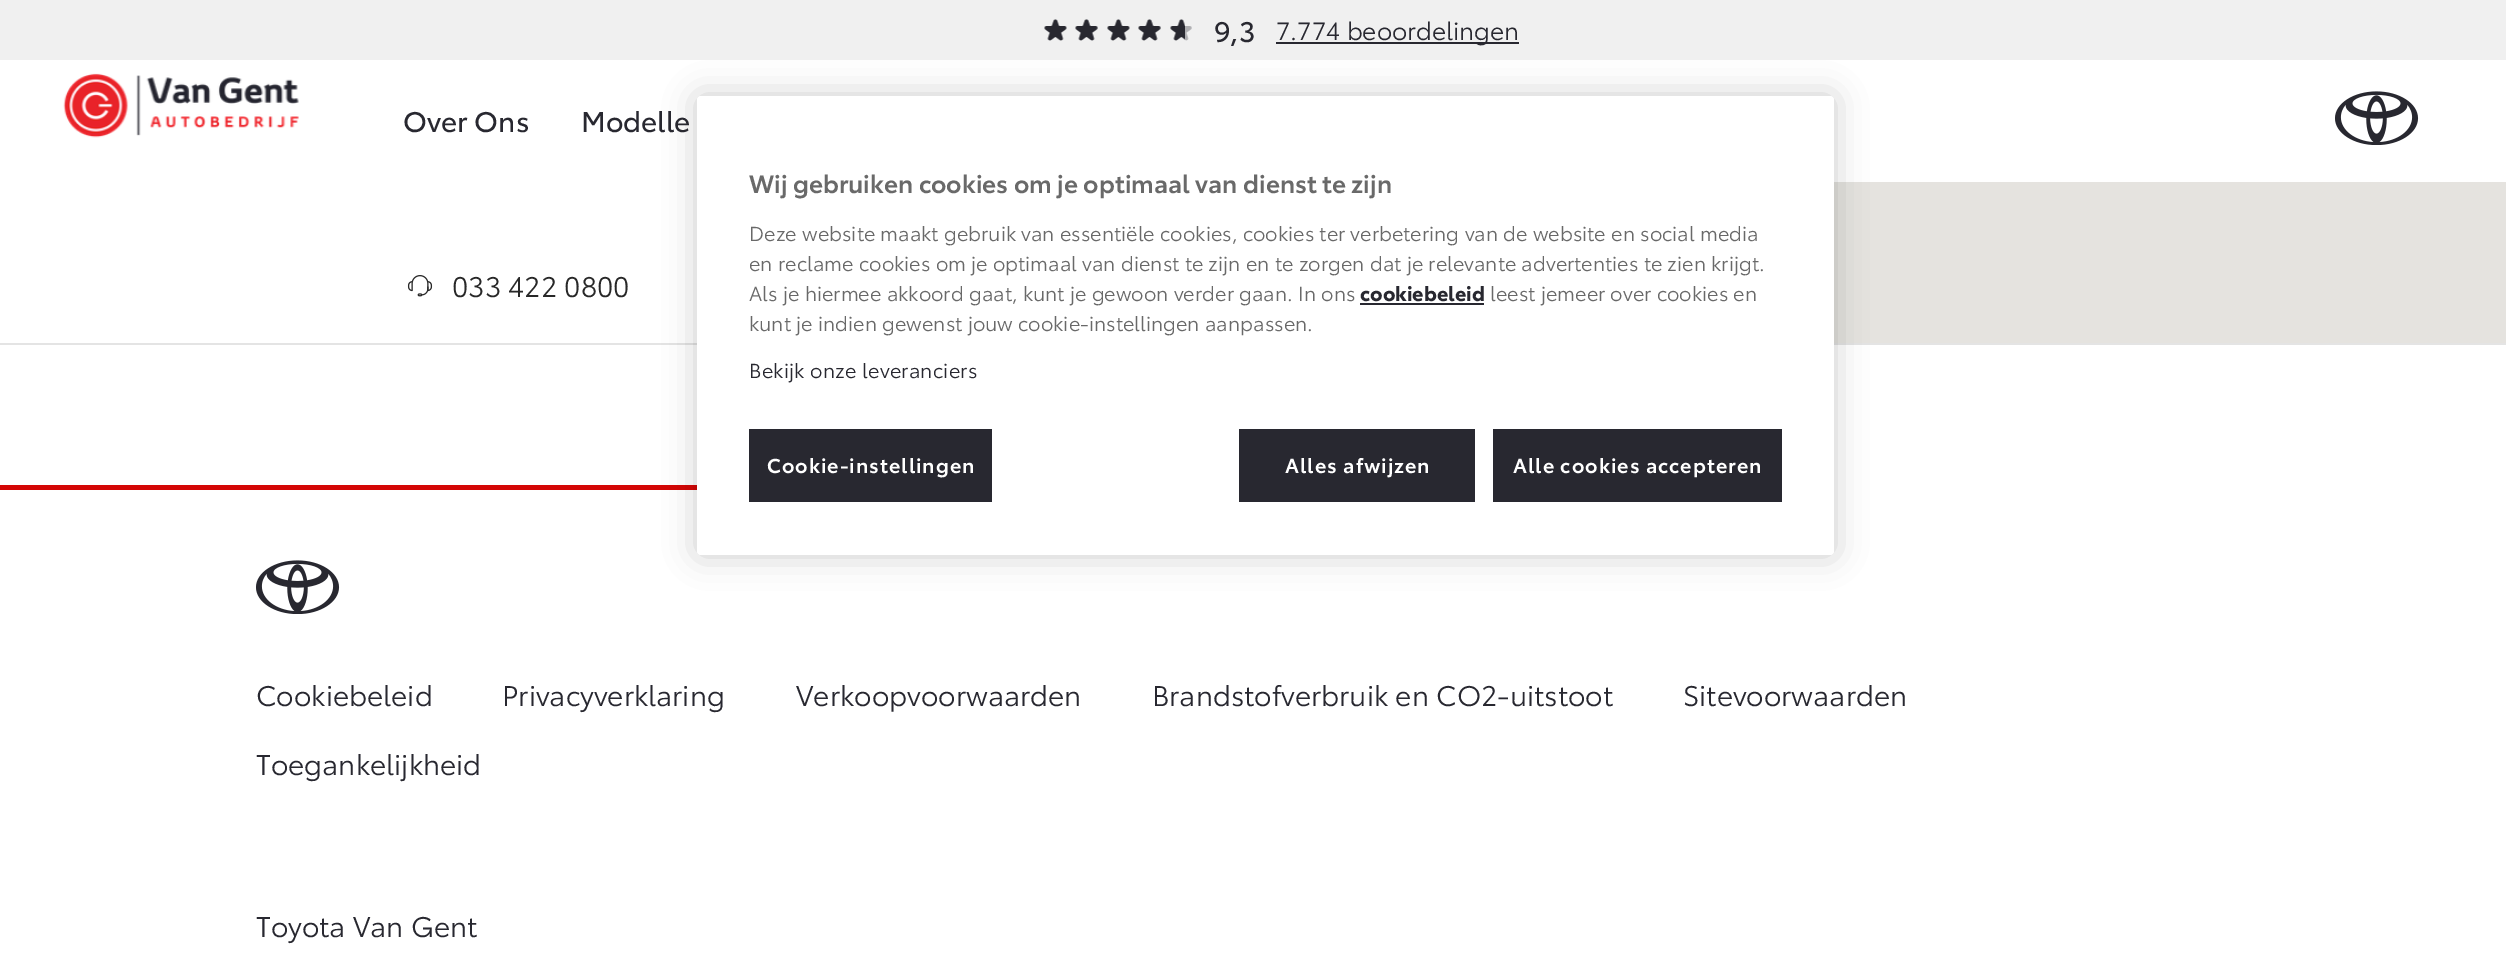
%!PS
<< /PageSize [2506 967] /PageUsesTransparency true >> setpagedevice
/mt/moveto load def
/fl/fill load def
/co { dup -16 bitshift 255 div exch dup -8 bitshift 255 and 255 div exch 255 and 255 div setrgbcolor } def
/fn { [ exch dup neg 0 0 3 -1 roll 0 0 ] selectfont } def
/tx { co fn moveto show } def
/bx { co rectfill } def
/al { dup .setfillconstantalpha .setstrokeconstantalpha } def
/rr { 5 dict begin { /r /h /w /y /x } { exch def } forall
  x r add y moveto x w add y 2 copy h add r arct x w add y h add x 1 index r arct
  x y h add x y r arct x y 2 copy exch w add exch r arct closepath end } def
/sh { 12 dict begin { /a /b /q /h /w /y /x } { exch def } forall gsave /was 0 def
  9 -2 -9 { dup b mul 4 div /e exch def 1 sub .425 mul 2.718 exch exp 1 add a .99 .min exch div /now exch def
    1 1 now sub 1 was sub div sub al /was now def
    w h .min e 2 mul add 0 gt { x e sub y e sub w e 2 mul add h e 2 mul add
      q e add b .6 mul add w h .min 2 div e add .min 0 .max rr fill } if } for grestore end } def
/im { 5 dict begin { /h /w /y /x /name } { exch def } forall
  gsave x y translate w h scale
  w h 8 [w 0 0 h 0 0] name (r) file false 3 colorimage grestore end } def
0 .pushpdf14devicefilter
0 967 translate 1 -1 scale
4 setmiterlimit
0 0 2506 967 16#FFFFFF bx
0 0 2506 60 16#F0F0F0 bx
(media/1.raw) 1044 19 148 22 im
(media/2.raw) 1044 19 141 22 im
1276 42 243 2 16#282830 bx
(media/3.raw) 63 73 236 65 im
(media/4.raw) 2335 91 84 54 im
0 343 2506 2 16#E4E4E4 bx
(media/5.raw) 407 275 26 22 im
1834 182 672 161 16#E5E3DF bx
0 485 697 5 16#D40605 bx
16#000000 co
697 96 1137 459 4 16 .2 sh
16#FFFFFF co
697 96 1137 459 4 rr fl
1360 303 124 2 16#282830 bx
749 429 243 73 16#282830 bx
1239 429 236 73 16#282830 bx
1493 429 289 73 16#282830 bx
(media/4.raw) 256 560 84 54 im
(9,3) 1214 42 /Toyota-Regular 28 16#282830 tx
(7.774 beoordelingen) 1276 40 /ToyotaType-Regular 24.5 16#282830 tx
(Over Ons) 403 132 /Toyota-Regular 28 16#282830 tx
(Modelle) 581 132 /Toyota-Regular 28 16#282830 tx
(033 422 0800) 452 297 /ToyotaType-Regular 28 16#282828 tx
(Wij gebruiken cookies om je optimaal van dienst te zijn) 749 193 /ToyotaType-SemiBold 24.5 16#696969 tx
(Deze website maakt gebruik van essentiële cookies, cookies ter verbetering van de website en social media) 749 241 /ToyotaType-Regular 19.92 16#696969 tx
(en reclame cookies om je optimaal van dienst te zijn en te zorgen dat je relevante advertenties te zien krijgt.) 749 271 /ToyotaType-Regular 19.92 16#696969 tx
(Als je hiermee akkoord gaat, kunt je gewoon verder gaan. In ons) 749 301 /ToyotaType-Regular 19.92 16#696969 tx
(cookiebeleid) 1360 301 /Toyota-Bold 19.92 16#282830 tx
(leest jemeer over cookies en) 1490 301 /ToyotaType-Regular 19.92 16#696969 tx
(kunt je indien gewenst jouw cookie-instellingen aanpassen.) 749 331 /ToyotaType-Regular 19.92 16#696969 tx
16#282830 co
749 378 mt .2 0 (Bekijk onze leveranciers) ashow
/ToyotaType-SemiBold 19.92 fn
16#FFFFFF co
767 473 mt 1 0 (Cookie-instellingen) ashow
1285 473 mt 1 0 (Alles afwijzen) ashow
1513 473 mt 1 0 (Alle cookies accepteren) ashow
(Cookiebeleid) 256 706 /ToyotaType-Regular 28 16#282830 tx
(Privacyverklaring) 502 706 /ToyotaType-Regular 28 16#282830 tx
(Verkoopvoorwaarden) 796 706 /ToyotaType-Regular 28 16#282830 tx
(Brandstofverbruik en CO2-uitstoot) 1152 706 /ToyotaType-Regular 28 16#282830 tx
(Sitevoorwaarden) 1683 706 /ToyotaType-Regular 28 16#282830 tx
(Toegankelijkheid) 256 775 /ToyotaType-Regular 28 16#282830 tx
(Toyota Van Gent) 256 937 /ToyotaType-Regular 28 16#282830 tx
.poppdf14devicefilter showpage
